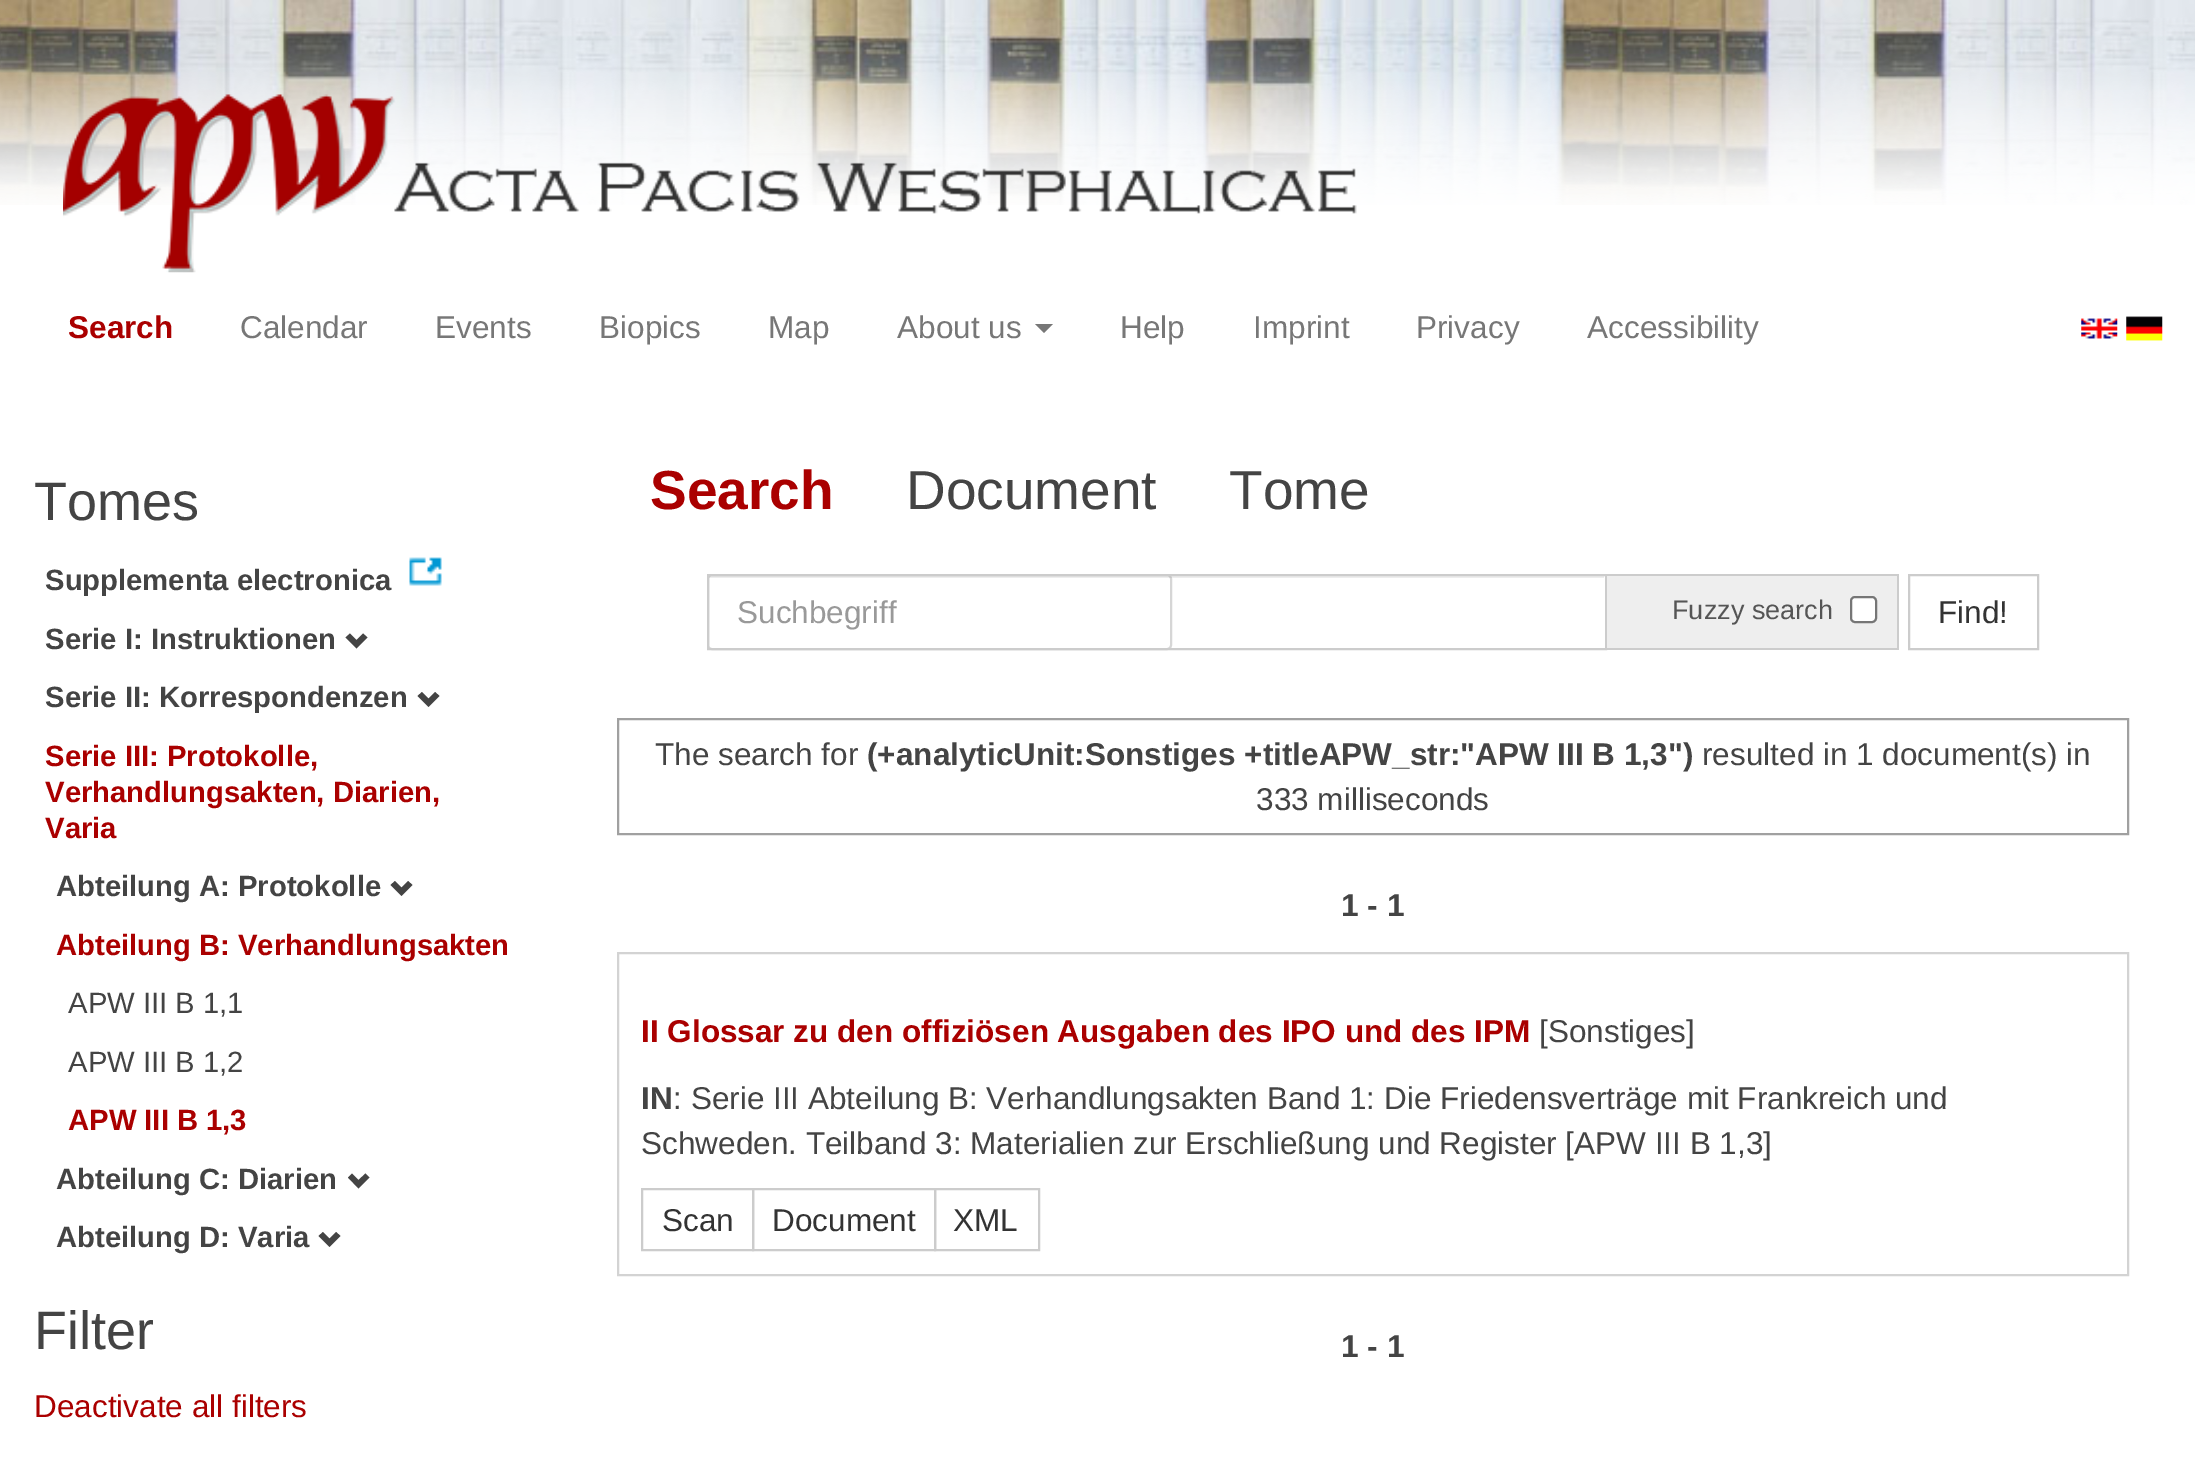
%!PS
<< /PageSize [2195 1466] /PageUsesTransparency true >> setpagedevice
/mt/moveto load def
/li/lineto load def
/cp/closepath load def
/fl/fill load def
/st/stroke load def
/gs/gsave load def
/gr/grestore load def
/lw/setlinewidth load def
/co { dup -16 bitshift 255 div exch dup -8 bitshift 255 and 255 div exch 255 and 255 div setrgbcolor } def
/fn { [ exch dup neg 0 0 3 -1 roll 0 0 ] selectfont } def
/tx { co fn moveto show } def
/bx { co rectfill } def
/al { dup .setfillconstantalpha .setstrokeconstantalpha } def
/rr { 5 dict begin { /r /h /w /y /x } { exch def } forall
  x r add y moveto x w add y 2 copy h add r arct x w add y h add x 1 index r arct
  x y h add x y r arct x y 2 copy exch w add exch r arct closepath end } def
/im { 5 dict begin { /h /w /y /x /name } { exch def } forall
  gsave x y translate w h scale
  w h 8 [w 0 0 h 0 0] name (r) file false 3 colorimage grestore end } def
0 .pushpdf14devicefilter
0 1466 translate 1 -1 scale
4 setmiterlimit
0 0 2195 1466 16#FFFFFF bx
(media/1.raw) 0 0 2195 205 im
(media/2.raw) 63 94 1294 179 im
16#777777 co
1035 324 mt 1053 324 li 1044 333 li cp fl
(media/3.raw) 2081 318 37 21 im
(media/4.raw) 2126 316 37 25 im
(media/5.raw) 409 557 33 29 im
16#444444 co
345.5 637.5 mt 356.5 648.5 li 367.5 637.5 li 363 633.5 li 356.5 640 li 350 633.5 li cp fl
417.5 696 mt 428.5 707 li 439.5 696 li 435 692 li 428.5 698.5 li 422 692 li cp fl
390.5 885 mt 401.5 896 li 412.5 885 li 408 881 li 401.5 887.5 li 395 881 li cp fl
348 1177.5 mt 358.5 1188.5 li 369.5 1177.5 li 365.5 1173.5 li 358.5 1180 li 352 1173.5 li cp fl
318.5 1236 mt 329.5 1247 li 340.5 1236 li 336 1232 li 329.5 1238.5 li 323 1232 li cp fl
16#D6D6D6 co
2 lw
708 575 463 74 4 rr st
0.07 al
709 576 895 2 16#000000 bx
1 al
16#CCCCCC co
708 575 898 74 rectstroke
1607 576 290 72 16#EEEEEE bx
1607 574 292 2 16#CCCCCC bx
1897 574 2 76 16#CCCCCC bx
1607 648 292 2 16#CCCCCC bx
16#FFFFFF co
1851 597 25 25 4 rr gs fl gr
16#767676 co
st
16#CCCCCC co
1909 575 129 74 rectstroke
16#A0A0A0 co
618 719 1510 115 rectstroke
16#D3D3D3 co
618 953 1510 322 rectstroke
16#CCCCCC co
642 1189 111 61 rectstroke
753 1189 182 61 rectstroke
935 1189 104 61 rectstroke
(Search) 68 338 /LiberationSans-Bold 31.5 16#AA0000 tx
(Calendar) 240 338 /LiberationSans-Regular 31.5 16#777777 tx
(Events) 435 338 /LiberationSans-Regular 31.5 16#777777 tx
(Biopics) 599 338 /LiberationSans-Regular 31.5 16#777777 tx
(Map) 768 338 /LiberationSans-Regular 31.5 16#777777 tx
(About us) 897 338 /LiberationSans-Regular 31.5 16#777777 tx
(Help) 1120 338 /LiberationSans-Regular 31.5 16#777777 tx
(Imprint) 1253 338 /LiberationSans-Regular 31.5 16#777777 tx
(Privacy) 1416 338 /LiberationSans-Regular 31.5 16#777777 tx
(Accessibility) 1587 338 /LiberationSans-Regular 31.5 16#777777 tx
(Tomes) 34 520 /LiberationSans-Regular 54 16#444444 tx
(Supplementa electronica) 45 590 /LiberationSans-Bold 29.25 16#444444 tx
(Serie I: Instruktionen) 45 649 /LiberationSans-Bold 29.25 16#444444 tx
(Serie II: Korrespondenzen) 45 707 /LiberationSans-Bold 29.25 16#444444 tx
(Serie III: Protokolle,) 45 766 /LiberationSans-Bold 29.25 16#AA0000 tx
(Verhandlungsakten, Diarien,) 45 802 /LiberationSans-Bold 29.25 16#AA0000 tx
(Varia) 45 838 /LiberationSans-Bold 29.25 16#AA0000 tx
(Abteilung A: Protokolle) 56 896 /LiberationSans-Bold 29.25 16#444444 tx
(Abteilung B: Verhandlungsakten) 56 955 /LiberationSans-Bold 29.25 16#AA0000 tx
(APW III B 1,1) 68 1013 /LiberationSans-Regular 29.25 16#444444 tx
(APW III B 1,2) 68 1072 /LiberationSans-Regular 29.25 16#444444 tx
(APW III B 1,3) 68 1130 /LiberationSans-Bold 29.25 16#AA0000 tx
(Abteilung C: Diarien) 56 1189 /LiberationSans-Bold 29.25 16#444444 tx
(Abteilung D: Varia) 56 1247 /LiberationSans-Bold 29.25 16#444444 tx
(Filter) 34 1349 /LiberationSans-Regular 54 16#444444 tx
(Deactivate all filters) 34 1417 /LiberationSans-Regular 31.5 16#AA0000 tx
(Search) 650 509 /LiberationSans-Bold 55 16#AA0000 tx
(Document) 906 509 /LiberationSans-Regular 55 16#444444 tx
(Tome) 1229 509 /LiberationSans-Regular 55 16#444444 tx
(Suchbegriff) 737 623 /LiberationSans-Regular 31.5 16#999999 tx
(Fuzzy search) 1672 619 /LiberationSans-Regular 27 16#555555 tx
(Find!) 1938 623 /LiberationSans-Regular 31.5 16#333333 tx
(The search for) 655 765 /LiberationSans-Regular 31.5 16#444444 tx
(\(+analyticUnit:Sonstiges +titleAPW_str:"APW III B 1,3"\)) 867 765 /LiberationSans-Bold 31.5 16#444444 tx
(resulted in 1 document\(s\) in) 1702 765 /LiberationSans-Regular 31.5 16#444444 tx
(333 milliseconds) 1256 810 /LiberationSans-Regular 31.5 16#444444 tx
(1 - 1) 1341 916 /LiberationSans-Bold 31.5 16#444444 tx
(II Glossar zu den offiziösen Ausgaben des IPO und des IPM) 641 1042 /LiberationSans-Bold 31.5 16#AA0000 tx
([Sonstiges]) 1539 1042 /LiberationSans-Regular 31.5 16#444444 tx
(IN) 641 1109 /LiberationSans-Bold 31.5 16#444444 tx
(: Serie III Abteilung B: Verhandlungsakten Band 1: Die Friedensverträge mit Frankreich und) 673 1109 /LiberationSans-Regular 31.5 16#444444 tx
(Schweden. Teilband 3: Materialien zur Erschließung und Register [APW III B 1,3]) 641 1154 /LiberationSans-Regular 31.5 16#444444 tx
(Scan) 662 1231 /LiberationSans-Regular 31.5 16#333333 tx
(Document) 772 1231 /LiberationSans-Regular 31.5 16#333333 tx
(XML) 953 1231 /LiberationSans-Regular 31.5 16#333333 tx
(1 - 1) 1341 1357 /LiberationSans-Bold 31.5 16#444444 tx
.poppdf14devicefilter showpage
